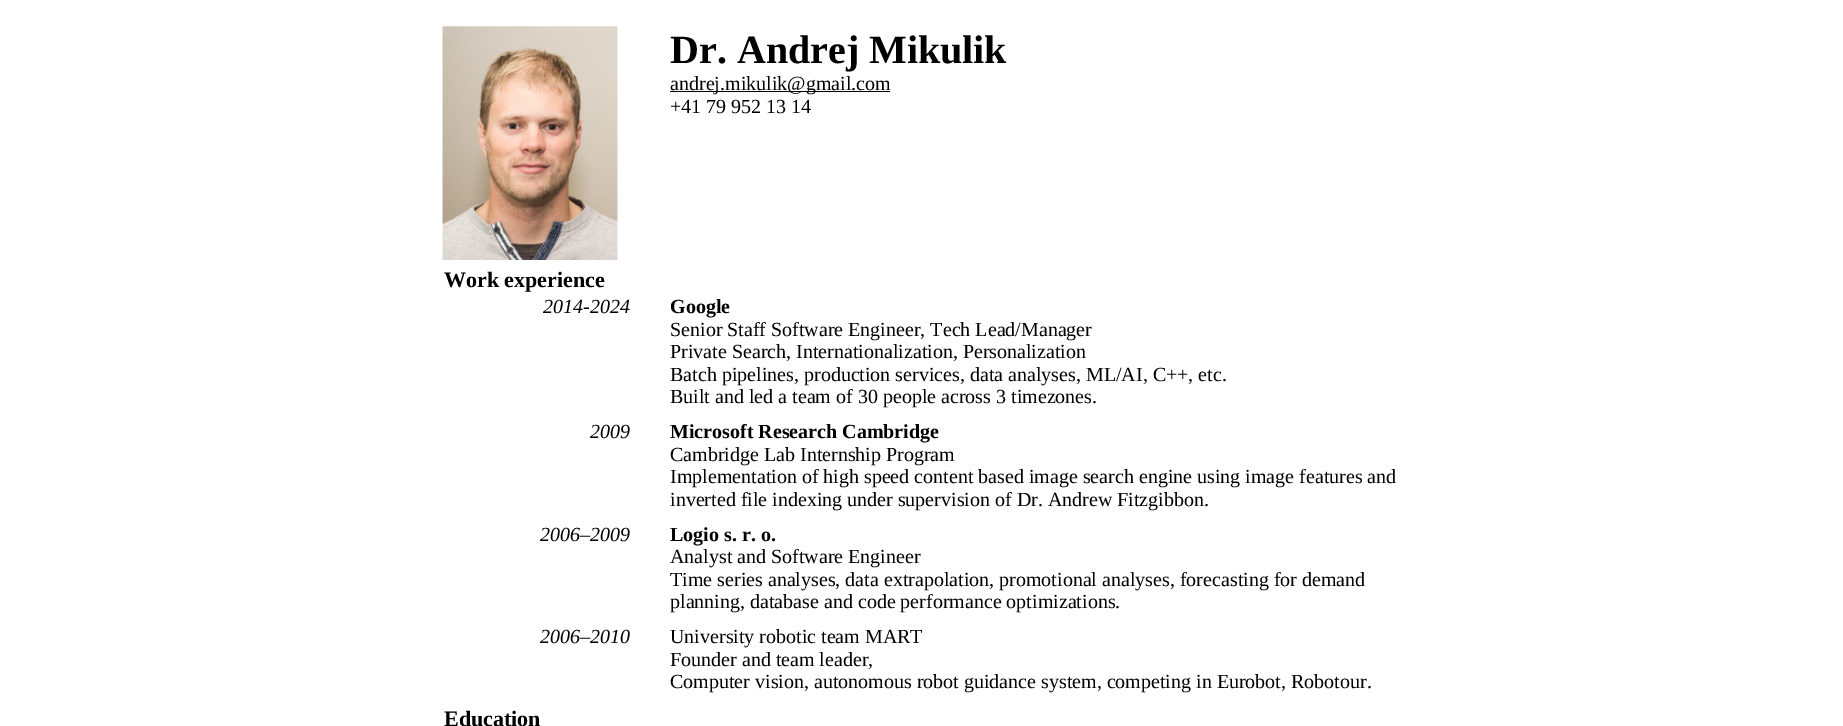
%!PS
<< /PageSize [1843 726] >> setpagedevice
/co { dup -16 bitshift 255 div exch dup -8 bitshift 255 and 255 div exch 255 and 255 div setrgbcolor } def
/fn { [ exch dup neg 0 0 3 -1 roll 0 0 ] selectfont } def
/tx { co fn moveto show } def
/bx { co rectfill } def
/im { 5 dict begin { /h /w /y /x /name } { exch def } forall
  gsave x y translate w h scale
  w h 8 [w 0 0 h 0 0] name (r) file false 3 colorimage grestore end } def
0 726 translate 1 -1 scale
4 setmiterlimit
0 0 1843 726 16#FFFFFF bx
(media/1.raw) 442 26 176 234 im
670 91 220 1 16#000000 bx
(Dr. Andrej Mikulik) 670 63 /LiberationSerif-Bold 40 16#000000 tx
(andrej.mikulik@gmail.com) 670 90 /LiberationSerif-Regular 20 16#000000 tx
(+41 79 952 13 14) 670 113 /LiberationSerif-Regular 20 16#000000 tx
(Work experience) 444 287 /LiberationSerif-Bold 22 16#000000 tx
(2014-2024) 543 313 /LiberationSerif-Italic 20 16#000000 tx
(Google) 670 313 /LiberationSerif-Bold 20 16#000000 tx
(Senior Staff Software Engineer, Tech Lead/Manager) 670 336 /LiberationSerif-Regular 20 16#000000 tx
(Private Search, Internationalization, Personalization) 670 358 /LiberationSerif-Regular 20 16#000000 tx
(Batch pipelines, production services, data analyses, ML/AI, C++, etc.) 670 381 /LiberationSerif-Regular 20 16#000000 tx
(Built and led a team of 30 people across 3 timezones.) 670 403 /LiberationSerif-Regular 20 16#000000 tx
(2009) 590 438 /LiberationSerif-Italic 20 16#000000 tx
(Microsoft Research Cambridge) 670 438 /LiberationSerif-Bold 20 16#000000 tx
(Cambridge Lab Internship Program) 670 461 /LiberationSerif-Regular 20 16#000000 tx
(Implementation of high speed content based image search engine using image features and) 670 483 /LiberationSerif-Regular 20 16#000000 tx
(inverted file indexing under supervision of Dr. Andrew Fitzgibbon.) 670 506 /LiberationSerif-Regular 20 16#000000 tx
(2006–2009) 540 541 /LiberationSerif-Italic 20 16#000000 tx
(Logio s. r. o.) 670 541 /LiberationSerif-Bold 20 16#000000 tx
(Analyst and Software Engineer) 670 563 /LiberationSerif-Regular 20 16#000000 tx
(Time series analyses, data extrapolation, promotional analyses, forecasting for demand) 670 586 /LiberationSerif-Regular 20 16#000000 tx
(planning, database and code performance optimizations.) 670 608 /LiberationSerif-Regular 20 16#000000 tx
(2006–2010) 540 643 /LiberationSerif-Italic 20 16#000000 tx
(University robotic team MART) 670 643 /LiberationSerif-Regular 20 16#000000 tx
(Founder and team leader,) 670 666 /LiberationSerif-Regular 20 16#000000 tx
(Computer vision, autonomous robot guidance system, competing in Eurobot, Robotour.) 670 688 /LiberationSerif-Regular 20 16#000000 tx
(Education) 444 726 /LiberationSerif-Bold 22 16#000000 tx
showpage
